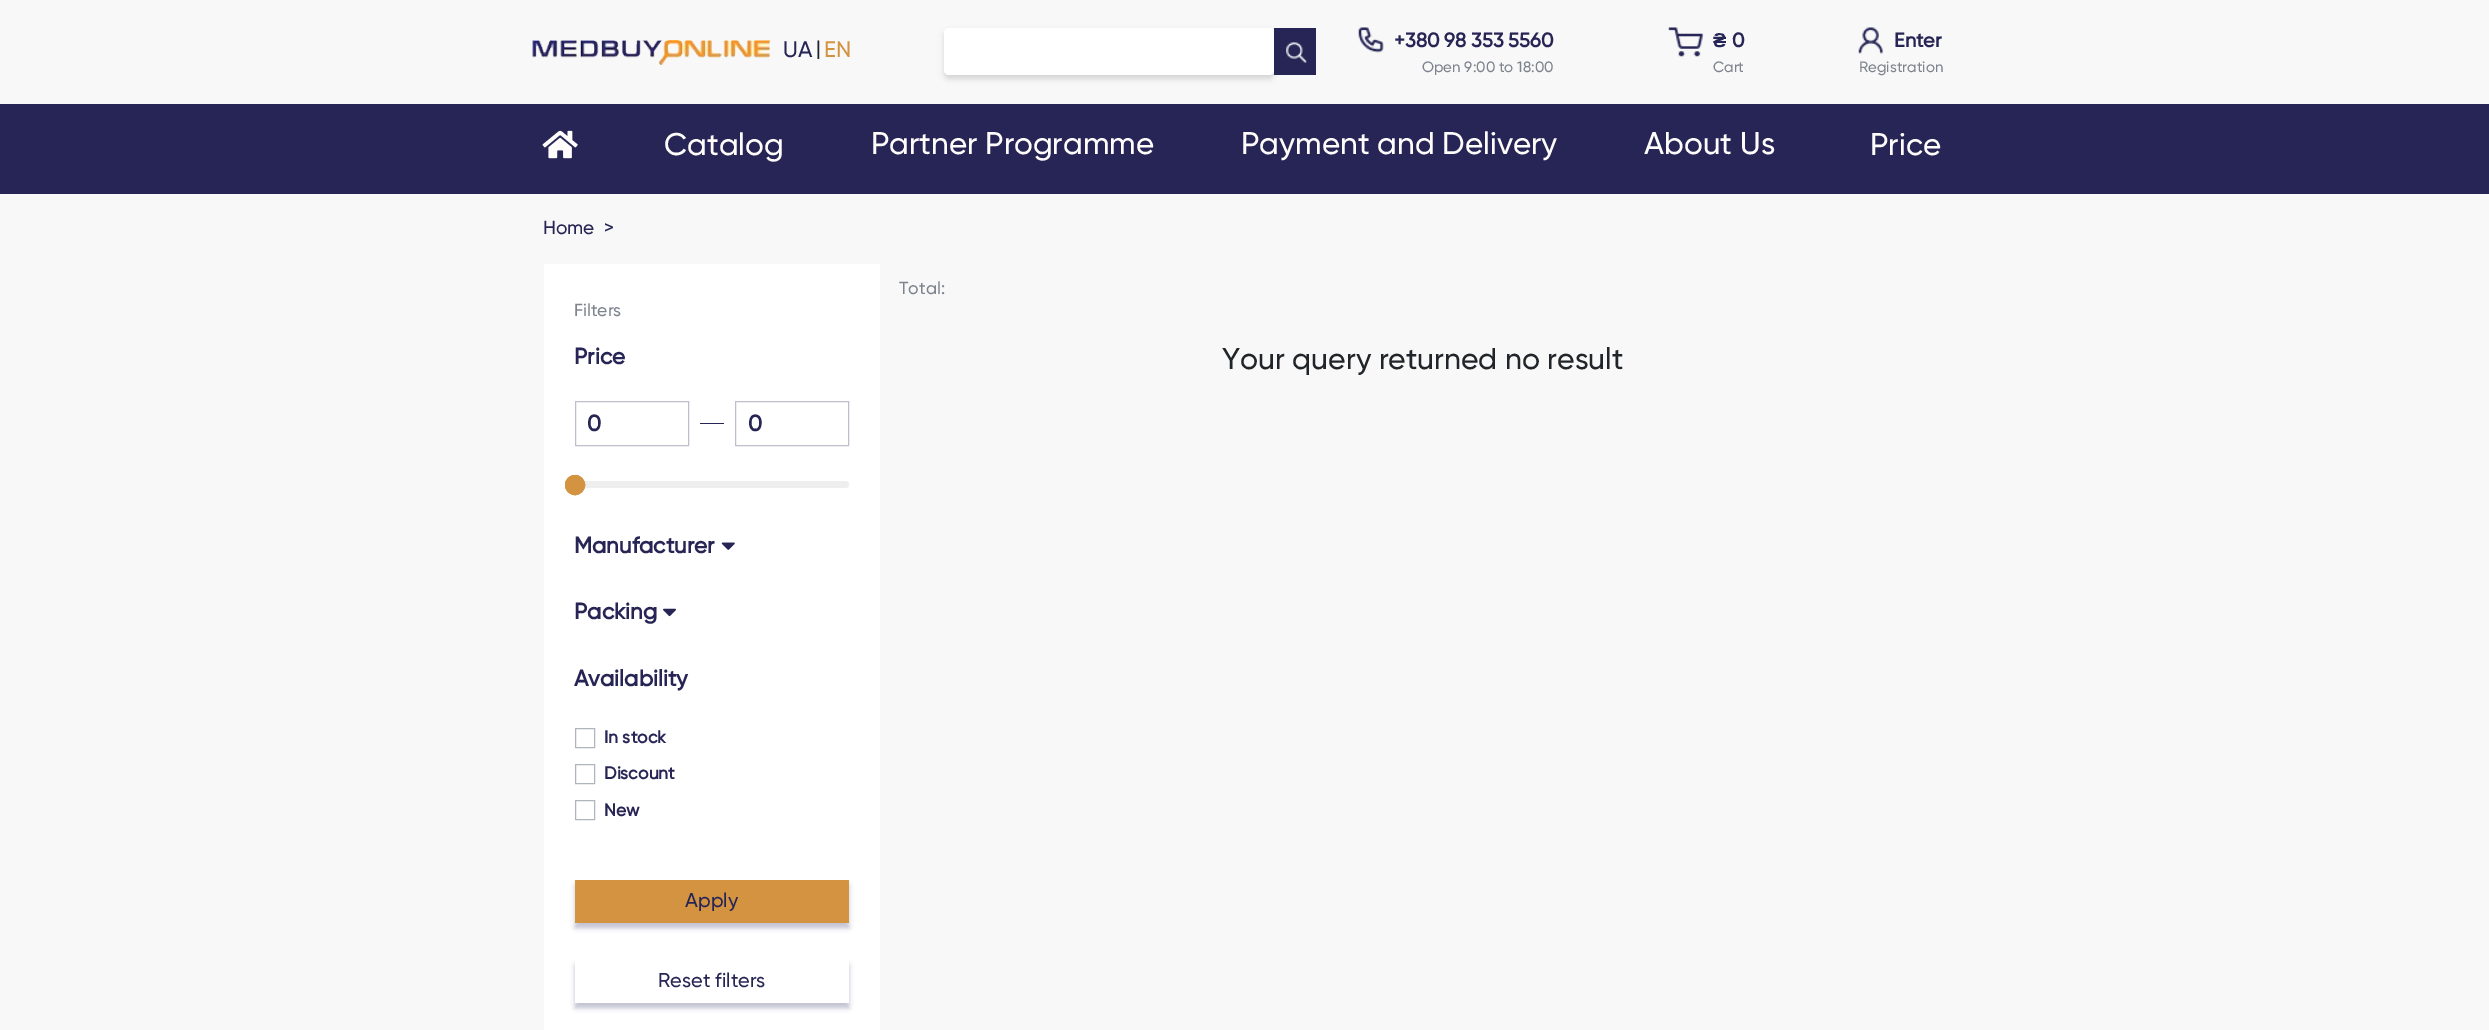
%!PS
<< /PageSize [2489 1030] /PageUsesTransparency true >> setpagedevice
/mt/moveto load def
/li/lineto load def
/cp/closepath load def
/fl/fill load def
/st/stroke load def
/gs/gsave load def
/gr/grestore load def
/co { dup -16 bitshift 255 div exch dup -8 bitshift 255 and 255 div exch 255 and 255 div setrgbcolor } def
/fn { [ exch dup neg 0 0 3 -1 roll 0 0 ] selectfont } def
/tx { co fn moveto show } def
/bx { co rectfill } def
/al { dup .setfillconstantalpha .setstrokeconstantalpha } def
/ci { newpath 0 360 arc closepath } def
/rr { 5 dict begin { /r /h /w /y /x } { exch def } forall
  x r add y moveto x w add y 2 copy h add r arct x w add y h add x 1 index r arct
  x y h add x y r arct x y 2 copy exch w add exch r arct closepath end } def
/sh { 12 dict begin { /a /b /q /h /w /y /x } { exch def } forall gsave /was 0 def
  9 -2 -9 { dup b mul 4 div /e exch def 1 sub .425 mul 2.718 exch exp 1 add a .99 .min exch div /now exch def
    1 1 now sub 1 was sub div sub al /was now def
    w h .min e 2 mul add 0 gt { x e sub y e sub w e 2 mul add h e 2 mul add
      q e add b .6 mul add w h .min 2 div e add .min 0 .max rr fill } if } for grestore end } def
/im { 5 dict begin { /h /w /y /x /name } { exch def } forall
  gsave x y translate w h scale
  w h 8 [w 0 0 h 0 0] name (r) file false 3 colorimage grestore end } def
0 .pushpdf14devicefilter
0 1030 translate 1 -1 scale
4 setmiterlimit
0 0 2489 1030 16#F8F8F8 bx
(media/1.raw) 532 40 238 25 im
16#D3D3D3 co
944 31 330 48 5 3 1 sh
16#FFFFFF co
944 28 330 47 5 rr fl
1274 28 42 47 16#262555 bx
(media/2.raw) 1286 42 21 21 im
(media/3.raw) 1358 27 26 26 im
(media/4.raw) 1668 27 36 30 im
(media/5.raw) 1858 27 26 27 im
0 104 2489 90 16#262555 bx
(media/6.raw) 542 130 36 29 im
544 264 336 766 16#FFFFFF bx
16#BEBECC co
575.5 401.5 113 44 rectstroke
700 423 24 1 16#262555 bx
16#BEBECC co
735.5 401.5 113 44 rectstroke
16#EEEEEE co
575 481 274 7 3.5 rr fl
16#D39340 co
575 485 9.5 ci st
575 485 9.5 ci gs fl gr
st
(media/7.raw) 721 542 14 8 im
(media/8.raw) 663 608 13 9 im
16#ADB5BD co
575.5 728.5 19 19 rectstroke
575.5 764.5 19 19 rectstroke
575.5 800.5 19 19 rectstroke
16#333269 co
575 885 274 43 0 2.5 .3 sh
575 880 274 43 16#D39340 bx
gs
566 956 mt 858 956 li 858 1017 li 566 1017 li cp 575 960 mt 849 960 li 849 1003 li 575 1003 li cp eoclip newpath
16#333269 co
575 965 274 43 0 2.5 .3 sh
gr
(UA) 783 57 /Gilroy-Medium 22.5 16#262555 tx
(|) 816 55 /Gilroy-Medium 20 16#212529 tx
(EN) 824 57 /Gilroy-Medium 22.5 16#D39340 tx
(+380 98 353 5560) 1394 47 /Gilroy-Bold 20 16#262555 tx
(Open 9:00 to 18:00) 1422 72 /Gilroy-Medium 15 16#7E848E tx
(₴) 1713 47 /LiberationSans-Bold 20 16#262555 tx
(0) 1732 47 /Gilroy-Bold 20 16#262555 tx
(Cart) 1713 72 /Gilroy-Medium 15 16#7E848E tx
(Enter) 1894 47 /Gilroy-Bold 20 16#262555 tx
(Registration) 1859 72 /Gilroy-Medium 15 16#7E848E tx
(Catalog) 664 155 /Gilroy-Medium 31.25 16#FFFDFB tx
(Partner Programme) 871 154 /Gilroy-Medium 31.25 16#FFFDFB tx
(Payment and Delivery) 1241 154 /Gilroy-Medium 31.25 16#FFFDFB tx
(About Us) 1644 154 /Gilroy-Medium 31.25 16#FFFDFB tx
(Price) 1870 155 /Gilroy-Medium 31.25 16#FFFDFB tx
(Home) 543 234 /Gilroy-Medium 19 16#262555 tx
(>) 604 234 /Gilroy-Medium 19 16#262555 tx
(Filters) 574 316 /Gilroy-Medium 17.5 16#7E848E tx
(Price) 574 364 /Gilroy-Bold 22.5 16#262555 tx
(0) 587 431 /Gilroy-Bold 22.5 16#262555 tx
(0) 748 431 /Gilroy-Bold 22.5 16#262555 tx
(Manufacturer) 574 553 /Gilroy-Bold 22.5 16#262555 tx
(Packing) 574 619 /Gilroy-Bold 22.5 16#262555 tx
(Availability) 574 686 /Gilroy-Bold 22.5 16#262555 tx
(In stock) 604 743 /Gilroy-Bold 17.5 16#262555 tx
(Discount) 604 779 /Gilroy-Bold 17.5 16#262555 tx
(New) 604 816 /Gilroy-Bold 17.5 16#262555 tx
(Apply) 685 907 /Gilroy-Medium 20 16#262555 tx
(Reset filters) 658 987 /Gilroy-Medium 20 16#262555 tx
(Total:) 899 294 /Gilroy-Medium 17.5 16#7E848E tx
(Your query returned no result) 1222 369 /Gilroy-Medium 30 16#212529 tx
.poppdf14devicefilter showpage
